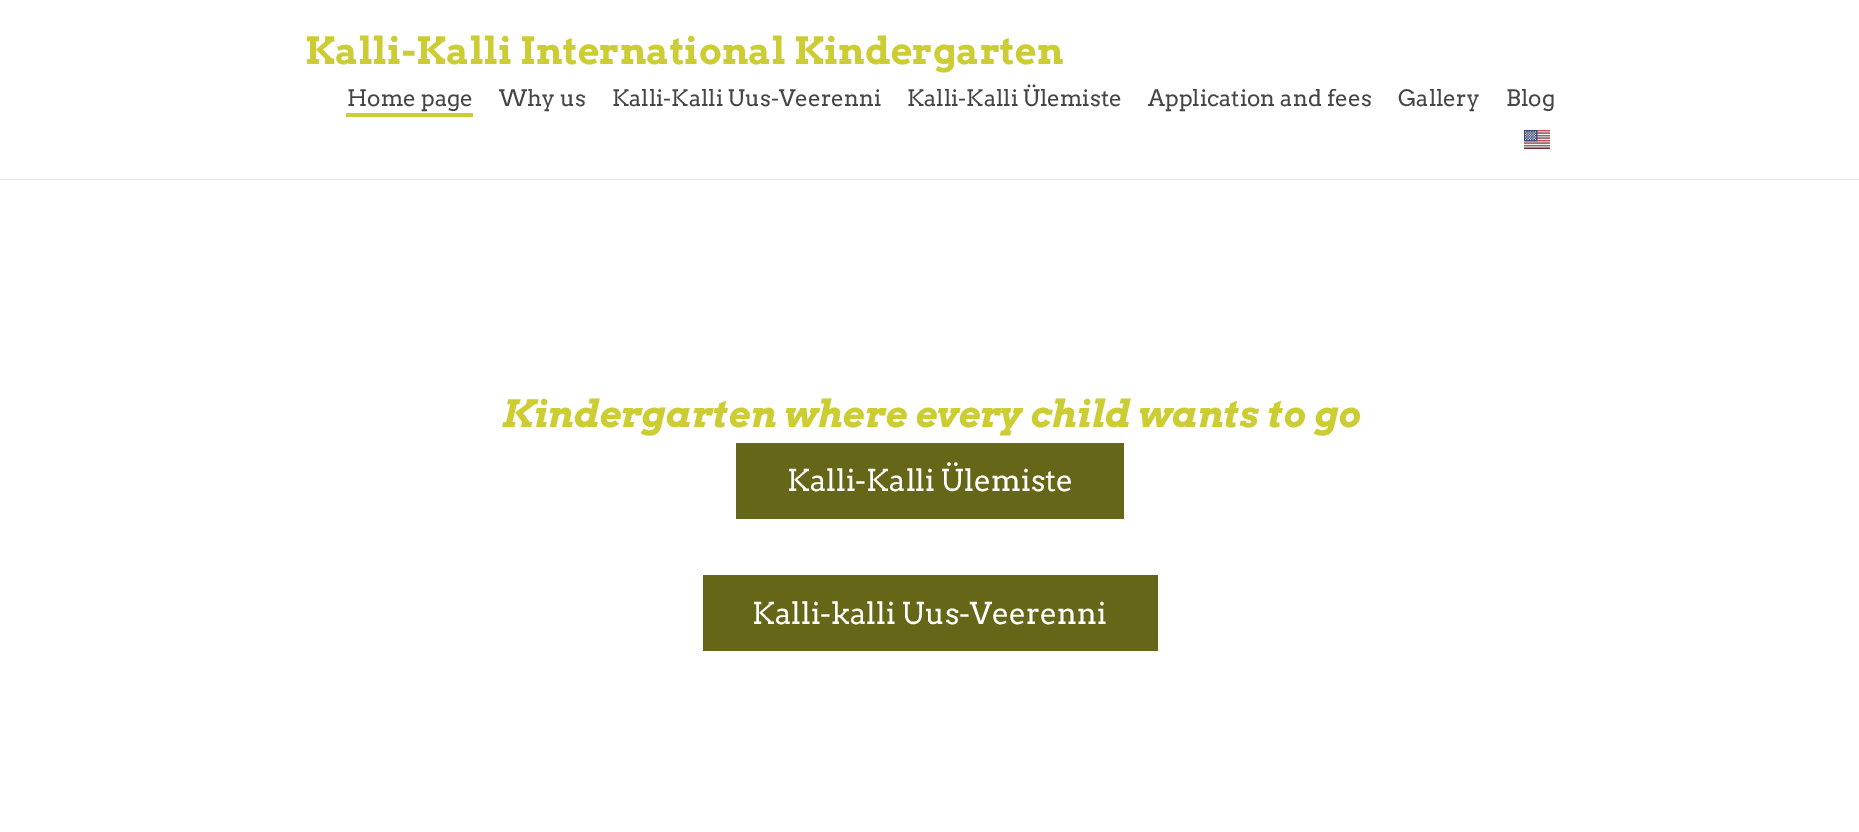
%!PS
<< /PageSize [1859 832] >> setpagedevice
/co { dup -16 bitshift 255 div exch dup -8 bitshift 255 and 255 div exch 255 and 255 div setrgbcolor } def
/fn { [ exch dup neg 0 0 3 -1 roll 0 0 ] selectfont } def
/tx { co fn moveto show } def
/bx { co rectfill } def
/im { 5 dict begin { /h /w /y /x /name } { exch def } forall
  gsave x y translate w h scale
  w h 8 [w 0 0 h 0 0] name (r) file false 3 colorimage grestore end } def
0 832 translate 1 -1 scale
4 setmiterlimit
0 0 1859 832 16#FFFFFF bx
0 179 1859 1 16#E6E6E6 bx
346 113 127 4 16#CCCC33 bx
1524 130 26 19 16#000000 bx
(media/1.raw) 1524 130 26 19 im
736 443 388 76 16#666619 bx
703 575 455 76 16#666619 bx
(Kalli-Kalli International Kindergarten) 305 64 /Arvo-Bold 37.5 16#CCCC33 tx
(Home page) 347 106 /Arvo-Regular 22.5 16#454545 tx
(Why us) 499 106 /Arvo-Regular 22.5 16#454545 tx
(Kalli-Kalli Uus-Veerenni) 612 106 /Arvo-Regular 22.5 16#454545 tx
(Kalli-Kalli Ülemiste) 907 106 /Arvo-Regular 22.5 16#454545 tx
(Application and fees) 1148 106 /Arvo-Regular 22.5 16#454545 tx
(Gallery) 1398 106 /Arvo-Regular 22.5 16#454545 tx
(Blog) 1506 106 /Arvo-Regular 22.5 16#454545 tx
(Kindergarten where every child wants to go) 501 427 /Arvo-BoldItalic 37.5 16#CCCC33 tx
(Kalli-Kalli Ülemiste) 787 491 /Arvo-Regular 30 16#FFFFFF tx
(Kalli-kalli Uus-Veerenni) 752 624 /Arvo-Regular 30 16#FFFFFF tx
showpage
